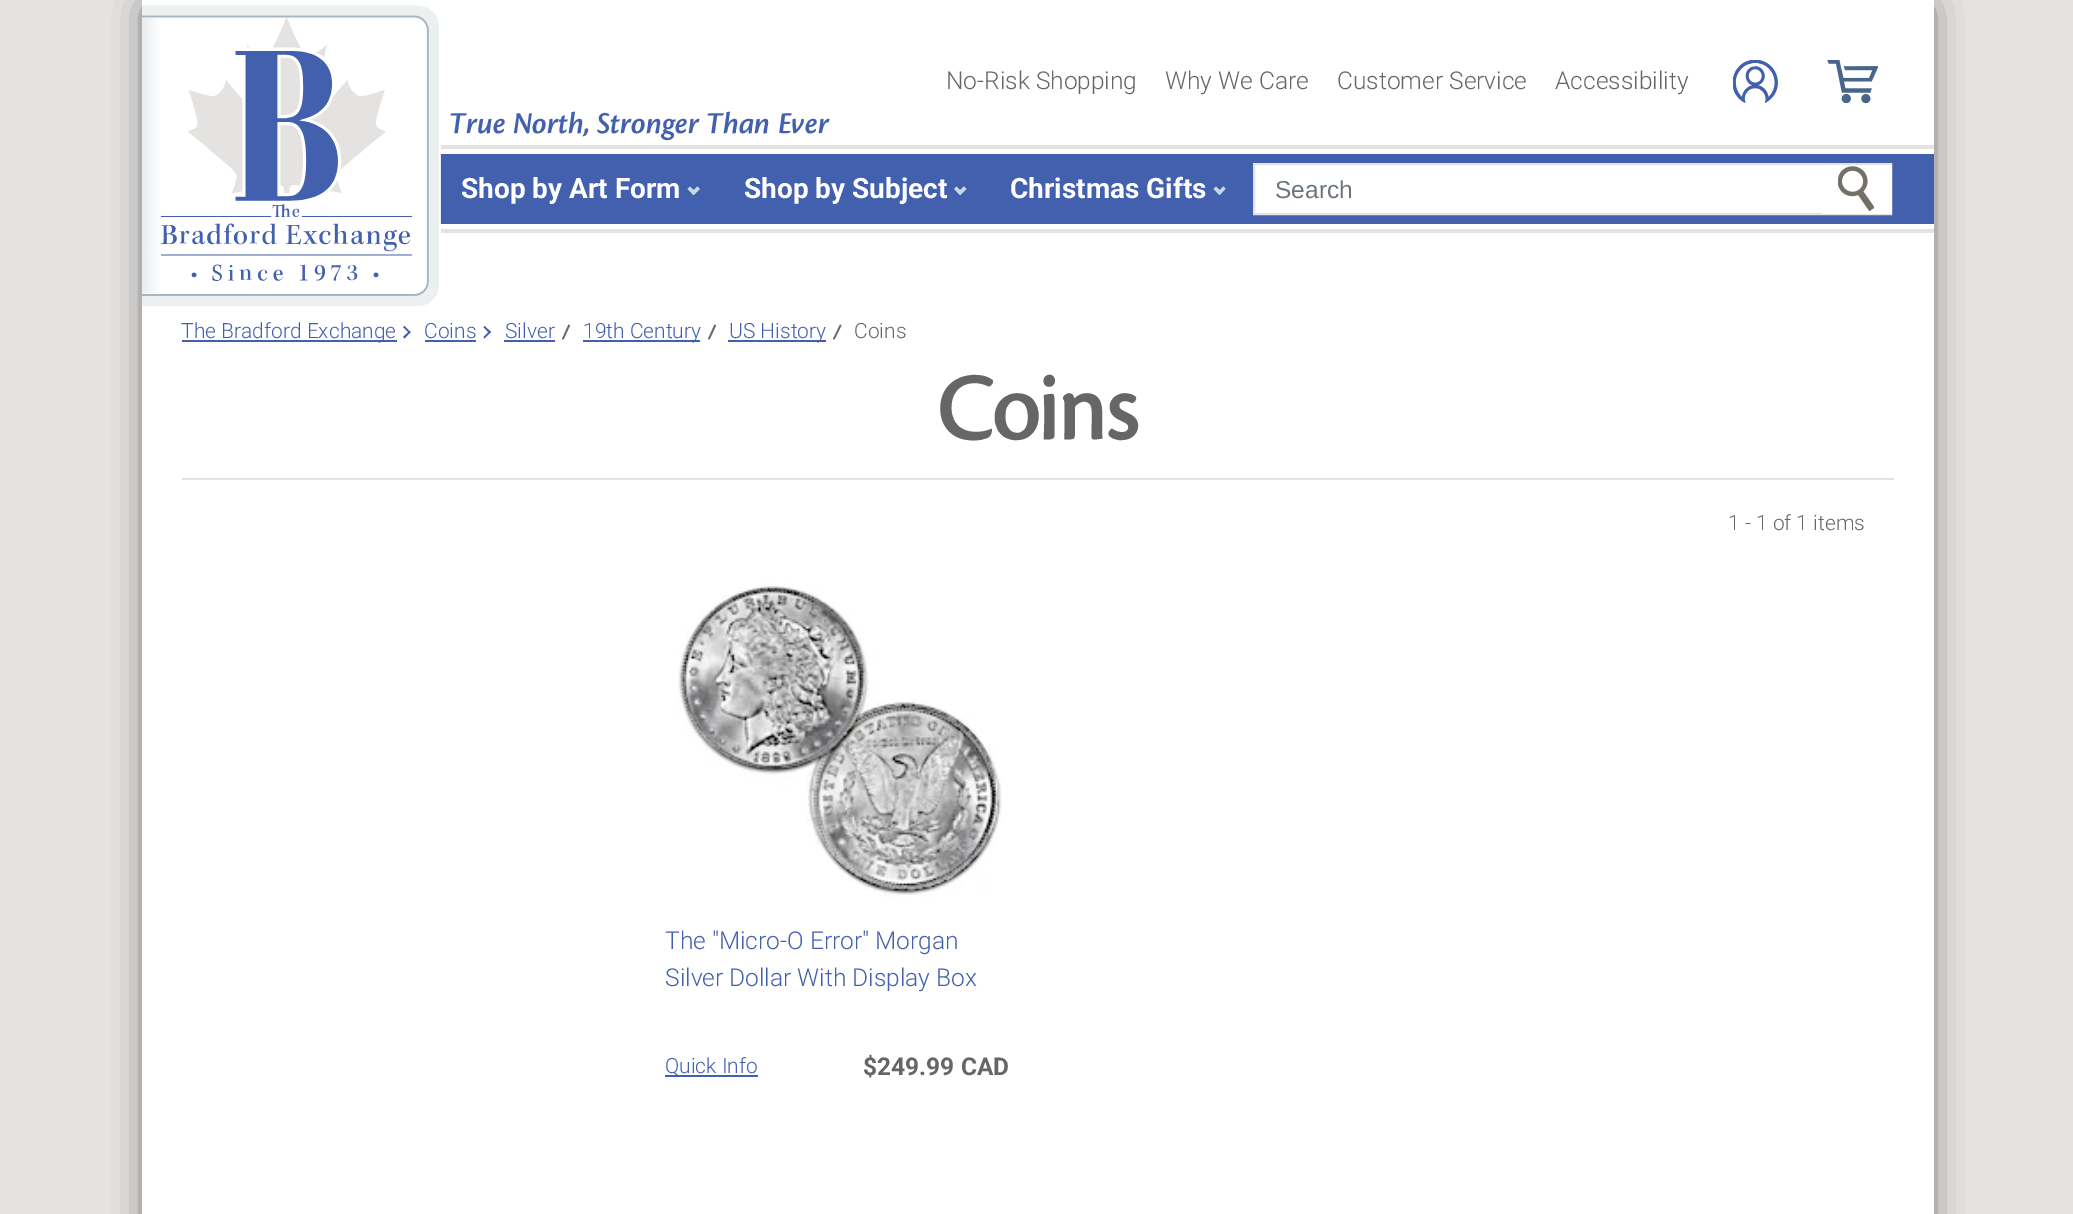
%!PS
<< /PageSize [2073 1214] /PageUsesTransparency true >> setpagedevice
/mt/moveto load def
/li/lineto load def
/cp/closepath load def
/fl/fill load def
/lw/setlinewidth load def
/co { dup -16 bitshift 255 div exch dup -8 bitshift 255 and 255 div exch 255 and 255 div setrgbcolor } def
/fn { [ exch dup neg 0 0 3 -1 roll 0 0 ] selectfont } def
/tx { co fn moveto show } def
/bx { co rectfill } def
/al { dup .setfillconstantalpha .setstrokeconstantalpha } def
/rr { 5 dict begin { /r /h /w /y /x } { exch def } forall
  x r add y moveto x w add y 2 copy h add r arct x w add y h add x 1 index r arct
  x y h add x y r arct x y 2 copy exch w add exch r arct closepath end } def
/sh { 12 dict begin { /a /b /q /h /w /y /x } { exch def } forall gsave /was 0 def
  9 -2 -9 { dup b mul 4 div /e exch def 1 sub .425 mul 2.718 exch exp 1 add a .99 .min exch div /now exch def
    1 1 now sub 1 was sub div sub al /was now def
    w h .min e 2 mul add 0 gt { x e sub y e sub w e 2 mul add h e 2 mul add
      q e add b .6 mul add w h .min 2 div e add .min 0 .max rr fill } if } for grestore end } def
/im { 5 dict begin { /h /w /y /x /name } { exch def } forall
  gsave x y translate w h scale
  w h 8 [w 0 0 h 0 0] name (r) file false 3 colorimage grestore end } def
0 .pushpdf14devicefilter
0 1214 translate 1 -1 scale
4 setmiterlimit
0 0 2073 1214 16#E5E3E1 bx
16#000000 co
151 9 1774 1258 0 17.5 .75 sh
142 0 1792 1214 16#FFFFFF bx
440 154 1494 70 16#4360AE bx
440 145 1494 4 16#E5E3E1 bx
440 229 1494 4 16#E5E3E1 bx
(media/1.raw) 142 5 299 301 im
(media/2.raw) 1733 60 45 43 im
(media/3.raw) 1827 60 51 43 im
16#C8DADD co
697.5 186.5 mt 700 189 li 693.5 195 li 691 192.5 li cp fl
690 186.5 mt 696 192.5 li 693.5 195 li 687.5 189 li cp fl
964 186.5 mt 966.5 189 li 960 195 li 957.5 192.5 li cp fl
956.5 186.5 mt 962.5 192.5 li 960 195 li 954 189 li cp fl
1223.5 186.5 mt 1225.5 189 li 1219.5 195 li 1217 192.5 li cp fl
1216 186.5 mt 1222 192.5 li 1219.5 195 li 1213.5 189 li cp fl
1255 165 567 48 16#FFFFFF bx
16#E5E3E1 co
2 lw
1254 164 637 50 rectstroke
1822 165 70 49 16#FFFFFF bx
(media/4.raw) 1838 166 36 46 im
182 340 215 2 16#4360AE bx
404.5 326 mt 410.5 332 li 409.5 333.5 li 403 327 li cp fl
409.5 331 mt 410.5 332 li 404.5 338.5 li 403 337 li cp fl
425 340 51 2 16#4360AE bx
484.5 326 mt 491 332 li 489.5 333.5 li 483.5 327 li cp fl
489.5 331 mt 491 332 li 484.5 338.5 li 483.5 337 li cp fl
504 340 51 2 16#4360AE bx
16#686664 co
568.5 324.5 mt 570 325.5 li 563.5 339.5 li 562 339 li cp fl
583 340 117 2 16#4360AE bx
16#686664 co
714.5 324.5 mt 716 325.5 li 709.5 339.5 li 708 339 li cp fl
728 340 98 2 16#4360AE bx
16#686664 co
840 324.5 mt 841.5 325.5 li 834.5 339.5 li 833 339 li cp fl
182 478 1712 2 16#E5E3E1 bx
(media/5.raw) 678 583 324 315 im
665 1075 93 2 16#4360AE bx
(No-Risk Shopping) 946 89 /Roboto-Light 24.5 16#686664 tx
(Why We Care) 1165 89 /Roboto-Light 24.5 16#686664 tx
(Customer Service) 1337 89 /Roboto-Light 24.5 16#686664 tx
(Accessibility) 1555 89 /Roboto-Light 24.5 16#686664 tx
(True North, Stronger Than Ever) 449 133 /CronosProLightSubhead-SemiBoldItalic 31.5 16#4360AE tx
(Shop by Art Form) 461 198 /Roboto-Bold 28 16#FFFFFF tx
(Shop by Subject) 744 198 /Roboto-Bold 28 16#FFFFFF tx
(Christmas Gifts) 1010 198 /Roboto-Bold 28 16#FFFFFF tx
(Search) 1275 198 /LiberationSans-Regular 24.5 16#6C757D tx
(The Bradford Exchange) 181 338 /Roboto-Light 21 16#4360AE tx
(Coins) 424 338 /Roboto-Light 21 16#4360AE tx
(Silver) 505 338 /Roboto-Light 21 16#4360AE tx
(19th Century) 583 338 /Roboto-Light 21 16#4360AE tx
(US History) 729 338 /Roboto-Light 21 16#4360AE tx
(Coins) 854 338 /Roboto-Light 21 16#686664 tx
(Coins) 937 439 /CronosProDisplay-Bold 96 16#686664 tx
(1 - 1 of 1 items) 1728 530 /Roboto-Light 21 16#686664 tx
(The "Micro-O Error" Morgan) 665 949 /Roboto-Light 24.5 16#4360AE tx
(Silver Dollar With Display Box) 665 986 /Roboto-Light 24.5 16#4360AE tx
(Quick Info) 665 1073 /Roboto-Light 21 16#4360AE tx
($249.99 CAD) 863 1075 /Roboto-Bold 24.5 16#686664 tx
.poppdf14devicefilter showpage
